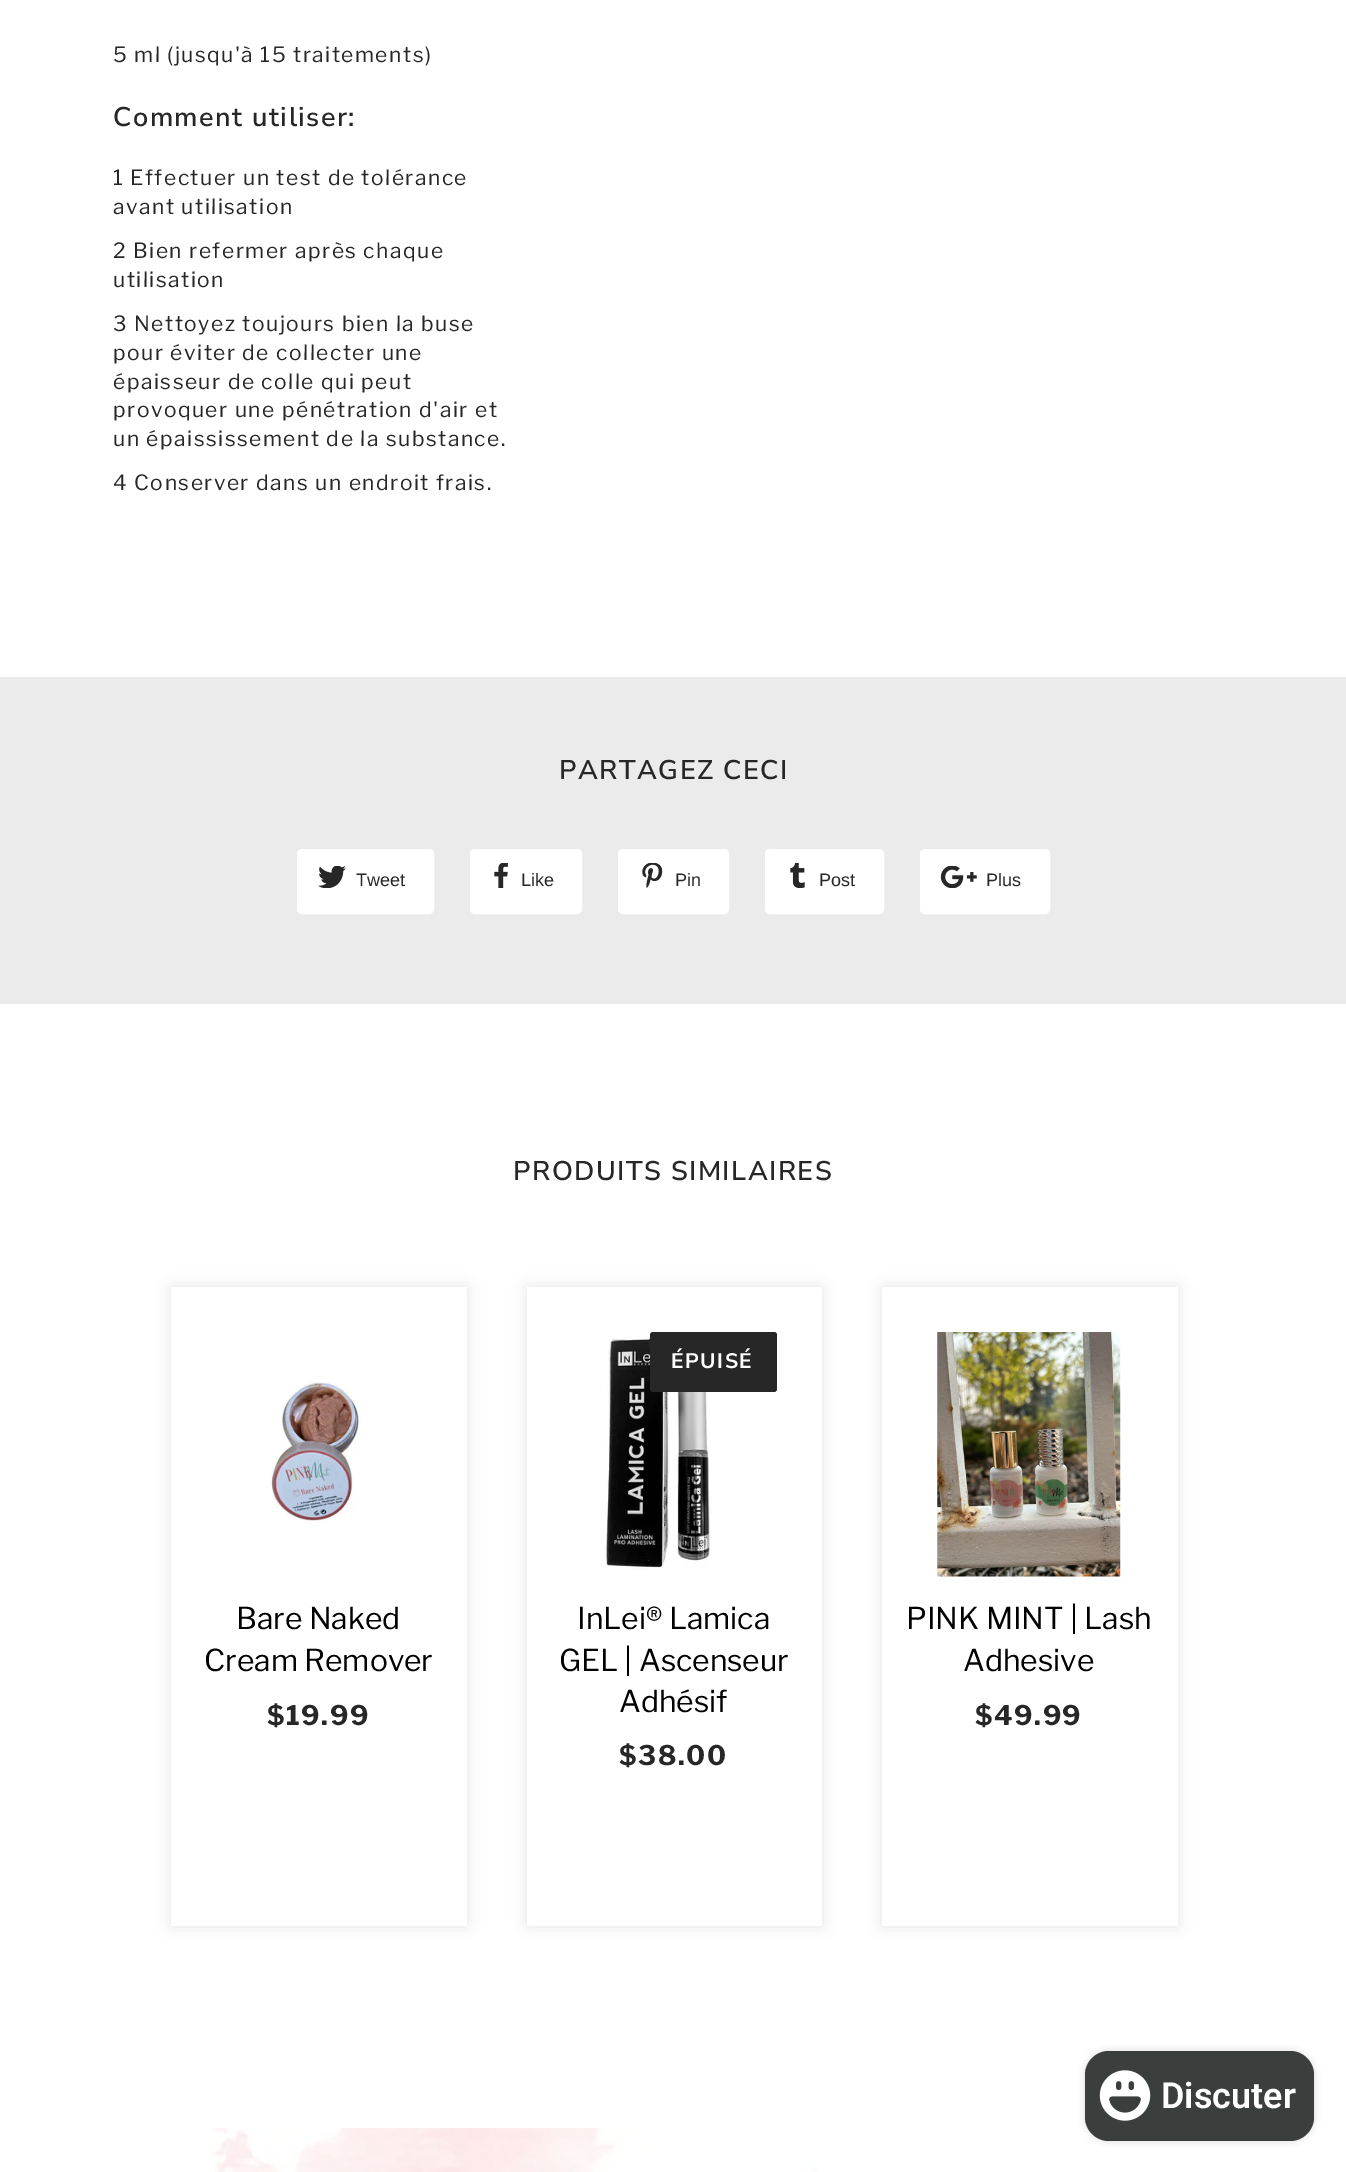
%!PS
<< /PageSize [1346 2172] /PageUsesTransparency true >> setpagedevice
/mt/moveto load def
/li/lineto load def
/cp/closepath load def
/fl/fill load def
/st/stroke load def
/gs/gsave load def
/gr/grestore load def
/lw/setlinewidth load def
/co { dup -16 bitshift 255 div exch dup -8 bitshift 255 and 255 div exch 255 and 255 div setrgbcolor } def
/fn { [ exch dup neg 0 0 3 -1 roll 0 0 ] selectfont } def
/tx { co fn moveto show } def
/bx { co rectfill } def
/al { dup .setfillconstantalpha .setstrokeconstantalpha } def
/rr { 5 dict begin { /r /h /w /y /x } { exch def } forall
  x r add y moveto x w add y 2 copy h add r arct x w add y h add x 1 index r arct
  x y h add x y r arct x y 2 copy exch w add exch r arct closepath end } def
/sh { 12 dict begin { /a /b /q /h /w /y /x } { exch def } forall gsave /was 0 def
  9 -2 -9 { dup b mul 4 div /e exch def 1 sub .425 mul 2.718 exch exp 1 add a .99 .min exch div /now exch def
    1 1 now sub 1 was sub div sub al /was now def
    w h .min e 2 mul add 0 gt { x e sub y e sub w e 2 mul add h e 2 mul add
      q e add b .6 mul add w h .min 2 div e add .min 0 .max rr fill } if } for grestore end } def
/im { 5 dict begin { /h /w /y /x /name } { exch def } forall
  gsave x y translate w h scale
  w h 8 [w 0 0 h 0 0] name (r) file false 3 colorimage grestore end } def
0 .pushpdf14devicefilter
0 2172 translate 1 -1 scale
4 setmiterlimit
0 0 1346 2172 16#FFFFFF bx
0 677 1346 327 16#EBEBEB bx
16#FFFFFF co
298 850 135 63 4 rr gs fl gr
2 lw
st
(media/1.raw) 318 866 28 22 im
471 850 110 63 4 rr gs fl gr
st
(media/2.raw) 494 863 14 25 im
619 850 109 63 4 rr gs fl gr
st
(media/3.raw) 642 863 21 25 im
766 850 117 63 4 rr gs fl gr
st
(media/4.raw) 790 863 15 25 im
921 850 128 63 4 rr gs fl gr
st
(media/5.raw) 940 866 37 22 im
16#000000 co
171 1287 296 639 0 7.5 .1 sh
171 1287 296 639 16#FFFFFF bx
(media/6.raw) 271 1382 90 142 im
gs
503 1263 mt 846 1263 li 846 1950 li 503 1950 li cp 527 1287 mt 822 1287 li 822 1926 li 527 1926 li cp eoclip newpath
16#000000 co
527 1287 295 639 0 7.5 .1 sh
gr
(media/7.raw) 606 1336 106 233 im
16#272727 co
650 1332 127 60 3 rr fl
16#000000 co
882 1287 296 639 0 7.5 .1 sh
882 1287 296 639 16#FFFFFF bx
(media/8.raw) 937 1332 184 245 im
(media/9.raw) 209 2128 610 44 im
16#000000 co
1085 2051 229 90 24 4 .15 sh
16#3A3F3D co
1085 2051 229 90 24 rr fl
(media/10.raw) 1099 2070 52 51 im
/LibreFranklin-Regular 21 fn
16#272727 co
113 62 mt 1.5 0 (5 ml \(jusqu'à 15 traitements\)) ashow
/NunitoSans-SemiBold 27 fn
113 126 mt 1.5 0 (Comment utiliser:) ashow
/LibreFranklin-Regular 21 fn
113 185 mt 1.5 0 (1 Effectuer un test de tolérance) ashow
113 214 mt 1.5 0 (avant utilisation) ashow
113 258 mt 1.5 0 (2 Bien refermer après chaque) ashow
113 287 mt 1.5 0 (utilisation) ashow
113 331 mt 1.5 0 (3 Nettoyez toujours bien la buse) ashow
113 360 mt 1.5 0 (pour éviter de collecter une) ashow
113 389 mt 1.5 0 (épaisseur de colle qui peut) ashow
113 417 mt 1.5 0 (provoquer une pénétration d'air et) ashow
113 446 mt 1.5 0 (un épaississement de la substance.) ashow
113 490 mt 1.5 0 (4 Conserver dans un endroit frais.) ashow
/NunitoSans-SemiBold 27 fn
559 779 mt 1.5 0 (PARTAGEZ CECI) ashow
(Tweet) 356 886 /LiberationSans-Regular 18 16#272727 tx
(Like) 521 886 /LiberationSans-Regular 18 16#272727 tx
(Pin) 675 886 /LiberationSans-Regular 18 16#272727 tx
(Post) 819 886 /LiberationSans-Regular 18 16#272727 tx
(Plus) 986 886 /LiberationSans-Regular 18 16#272727 tx
/NunitoSans-SemiBold 27 fn
513 1180 mt 1.5 0 (PRODUITS SIMILAIRES) ashow
(Bare Naked) 236 1629 /LibreFranklin-Regular 30 16#000000 tx
(Cream Remover) 204 1671 /LibreFranklin-Regular 30 16#000000 tx
/LibreFranklin-Bold 27 fn
16#272727 co
267 1725 mt 1.5 0 ($19.99) ashow
/NunitoSans-Bold 21 fn
16#FFFFFF co
671 1368 mt 1.5 0 (ÉPUISÉ) ashow
(InLei® Lamica) 577 1629 /LibreFranklin-Regular 30 16#000000 tx
(GEL | Ascenseur) 559 1671 /LibreFranklin-Regular 30 16#000000 tx
(Adhésif) 619 1712 /LibreFranklin-Regular 30 16#000000 tx
/LibreFranklin-Bold 27 fn
16#272727 co
619 1765 mt 1.5 0 ($38.00) ashow
(PINK MINT | Lash) 906 1629 /LibreFranklin-Regular 30 16#000000 tx
(Adhesive) 963 1671 /LibreFranklin-Regular 30 16#000000 tx
/LibreFranklin-Bold 27 fn
16#272727 co
975 1725 mt 1.5 0 ($49.99) ashow
(Discuter) 1161 2108 /Roboto-SemiBold 36 16#FFFFFF tx
.poppdf14devicefilter showpage
